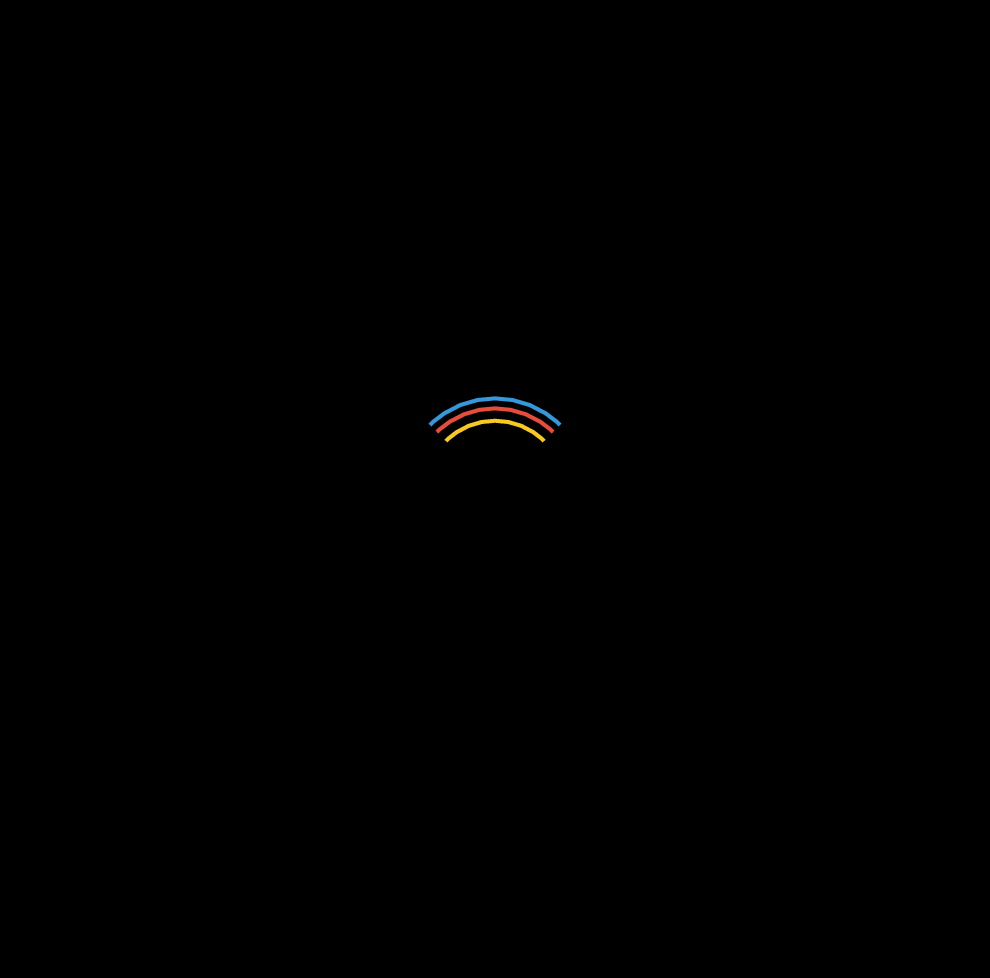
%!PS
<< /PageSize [990 978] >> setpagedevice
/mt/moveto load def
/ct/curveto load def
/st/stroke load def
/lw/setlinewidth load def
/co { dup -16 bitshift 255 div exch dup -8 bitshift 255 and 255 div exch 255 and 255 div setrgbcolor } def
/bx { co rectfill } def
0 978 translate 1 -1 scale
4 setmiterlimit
0 0 990 978 16#000000 bx
16#3498DB co
3.8 lw
430 425 mt 465.5 389.5 524.5 389.5 560 425 ct st
16#E74C3C co
437 432 mt 469 400.5 521 400.5 553 432 ct st
16#F9C922 co
446 441 mt 472.5 414 517.5 414 544 441 ct st
showpage
